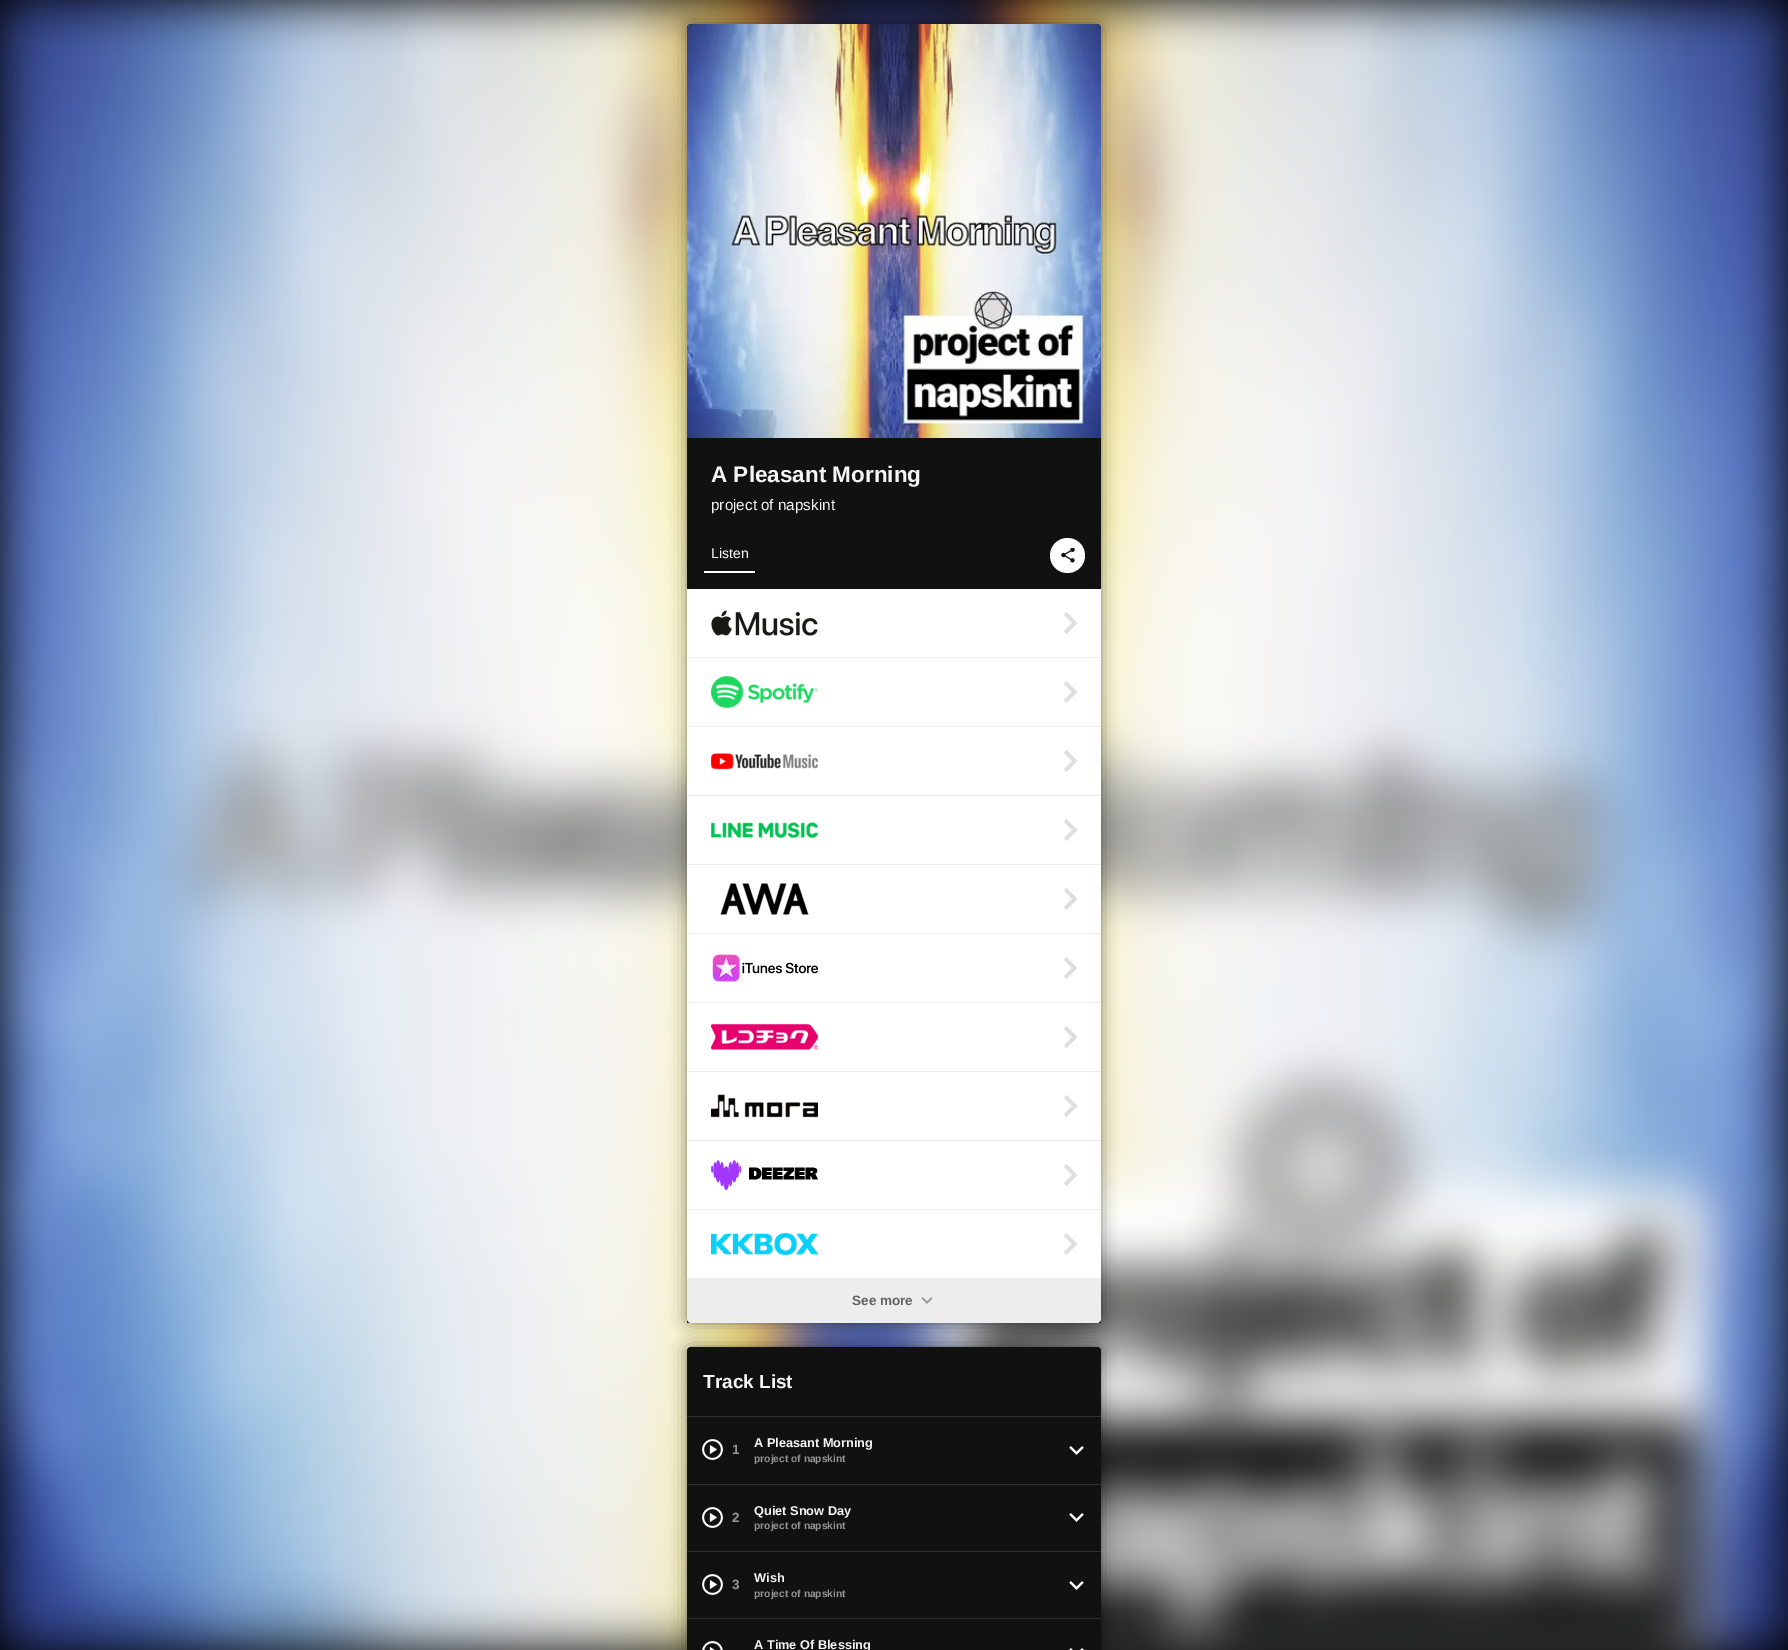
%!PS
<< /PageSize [1788 1650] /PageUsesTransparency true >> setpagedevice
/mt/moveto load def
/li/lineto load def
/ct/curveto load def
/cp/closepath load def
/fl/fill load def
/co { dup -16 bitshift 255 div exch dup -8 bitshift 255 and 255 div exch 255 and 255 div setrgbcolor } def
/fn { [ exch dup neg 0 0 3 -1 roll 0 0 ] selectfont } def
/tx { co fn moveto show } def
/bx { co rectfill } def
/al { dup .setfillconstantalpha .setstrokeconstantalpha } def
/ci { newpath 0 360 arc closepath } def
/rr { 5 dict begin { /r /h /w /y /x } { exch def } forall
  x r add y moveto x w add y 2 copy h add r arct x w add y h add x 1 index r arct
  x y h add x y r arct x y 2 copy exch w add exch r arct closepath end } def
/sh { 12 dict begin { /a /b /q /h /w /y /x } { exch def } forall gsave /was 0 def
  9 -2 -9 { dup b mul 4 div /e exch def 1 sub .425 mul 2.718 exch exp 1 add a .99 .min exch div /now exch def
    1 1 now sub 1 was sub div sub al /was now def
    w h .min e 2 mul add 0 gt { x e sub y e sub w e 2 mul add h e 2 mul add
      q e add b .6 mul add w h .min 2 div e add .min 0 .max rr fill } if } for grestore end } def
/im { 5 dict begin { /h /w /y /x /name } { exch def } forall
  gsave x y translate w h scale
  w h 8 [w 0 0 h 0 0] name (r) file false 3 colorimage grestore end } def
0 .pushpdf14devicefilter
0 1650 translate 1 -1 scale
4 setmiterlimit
0 0 1788 1650 16#000000 bx
(media/1.raw) 0 0 1788 1650 im
687 24 414 1299 4 8 .47 sh
(media/2.raw) 687 24 414 414 im
687 438 414 885 16#111111 bx
704 571 51 2 16#FFFFFF bx
1067.5 555.5 17.5 ci fl
(media/3.raw) 1061 548 14 15 im
687 589 414 689 16#FFFFFF bx
(media/4.raw) 711 610 107 26 im
16#DEDEDE co
1064 631 mt 1072 623 li 1064 615 li 1066.5 612 li 1077.5 623 li 1066.5 634 li cp fl
687 657 414 1 16#EDEDED bx
(media/5.raw) 711 675 107 34 im
16#DEDEDE co
1064 700 mt 1072 692 li 1064 684 li 1066.5 681 li 1077.5 692 li 1066.5 703 li cp fl
687 726 414 1 16#EDEDED bx
(media/6.raw) 711 753 107 17 im
16#DEDEDE co
1064 769 mt 1072 761 li 1064 753 li 1066.5 750 li 1077.5 761 li 1066.5 772 li cp fl
687 795 414 1 16#EDEDED bx
(media/7.raw) 711 822 107 16 im
16#DEDEDE co
1064 838 mt 1072 830 li 1064 822 li 1066.5 819 li 1077.5 830 li 1066.5 841 li cp fl
687 864 414 1 16#EDEDED bx
(media/8.raw) 720 883 89 32 im
16#DEDEDE co
1064 907 mt 1072 899 li 1064 891 li 1066.5 888 li 1077.5 899 li 1066.5 910 li cp fl
687 933 414 1 16#EDEDED bx
(media/9.raw) 712 954 106 28 im
16#DEDEDE co
1064 976 mt 1072 968 li 1064 960 li 1066.5 957 li 1077.5 968 li 1066.5 979 li cp fl
687 1002 414 1 16#EDEDED bx
(media/10.raw) 711 1023 107 27 im
16#DEDEDE co
1064 1045 mt 1072 1037 li 1064 1029 li 1066.5 1026 li 1077.5 1037 li 1066.5 1048 li cp fl
687 1071 414 1 16#EDEDED bx
(media/11.raw) 711 1094 107 24 im
16#DEDEDE co
1064 1114 mt 1072 1106 li 1064 1098 li 1066.5 1095 li 1077.5 1106 li 1066.5 1117 li cp fl
687 1140 414 1 16#EDEDED bx
(media/12.raw) 711 1160 107 30 im
16#DEDEDE co
1064 1183 mt 1072 1175 li 1064 1167 li 1066.5 1164 li 1077.5 1175 li 1066.5 1186 li cp fl
687 1209 414 1 16#EDEDED bx
(media/13.raw) 711 1232 107 24 im
16#DEDEDE co
1064 1252 mt 1072 1244 li 1064 1236 li 1066.5 1233 li 1077.5 1244 li 1066.5 1255 li cp fl
16#000000 co
687 1347 414 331 4 8 .47 sh
16#EDEDED co
687 1278 mt 1101 1278 li 1101 1319 li 1101 1321 1099 1323 1097 1323 ct 691 1323 li 689 1323 687 1321 687 1319 ct cp fl
(media/14.raw) 921 1297 11 7 im
16#111111 co
687 1347 414 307 4 rr fl
687 1416 414 1 16#2E2E2E bx
687 1484 414 1 16#2E2E2E bx
(media/15.raw) 702 1439 21 21 im
(media/16.raw) 1069 1446 15 9 im
687 1551 414 1 16#2E2E2E bx
(media/15.raw) 702 1507 21 21 im
(media/16.raw) 1069 1513 15 9 im
687 1618 414 1 16#2E2E2E bx
(media/15.raw) 702 1574 21 21 im
(media/16.raw) 1069 1581 15 9 im
(media/17.raw) 702 1641 21 9 im
(media/18.raw) 1069 1648 15 2 im
(A Pleasant Morning) 711 482 /LiberationSans-Bold 22.5 16#F5F5F5 tx
(project of napskint) 711 510 /LiberationSans-Regular 15.25 16#F5F5F5 tx
(Listen) 711 558 /LiberationSans-Regular 14 16#FFFFFF tx
(See more) 852 1305 /LiberationSans-Bold 13.5 16#636363 tx
(Track List) 703 1388 /LiberationSans-Bold 19 16#F5F5F5 tx
(1) 732 1454 /LiberationSans-Bold 13.5 16#969696 tx
(A Pleasant Morning) 754 1447 /LiberationSans-Bold 12.75 16#F5F5F5 tx
(project of napskint) 754 1462 /LiberationSans-Bold 10.25 16#969696 tx
(2) 732 1522 /LiberationSans-Bold 13.5 16#969696 tx
(Quiet Snow Day) 754 1515 /LiberationSans-Bold 12.75 16#F5F5F5 tx
(project of napskint) 754 1529 /LiberationSans-Bold 10.25 16#969696 tx
(3) 732 1589 /LiberationSans-Bold 13.5 16#969696 tx
(Wish) 754 1582 /LiberationSans-Bold 12.75 16#F5F5F5 tx
(project of napskint) 754 1597 /LiberationSans-Bold 10.25 16#969696 tx
(A Time Of Blessing) 754 1649 /LiberationSans-Bold 12.75 16#F5F5F5 tx
.poppdf14devicefilter showpage
